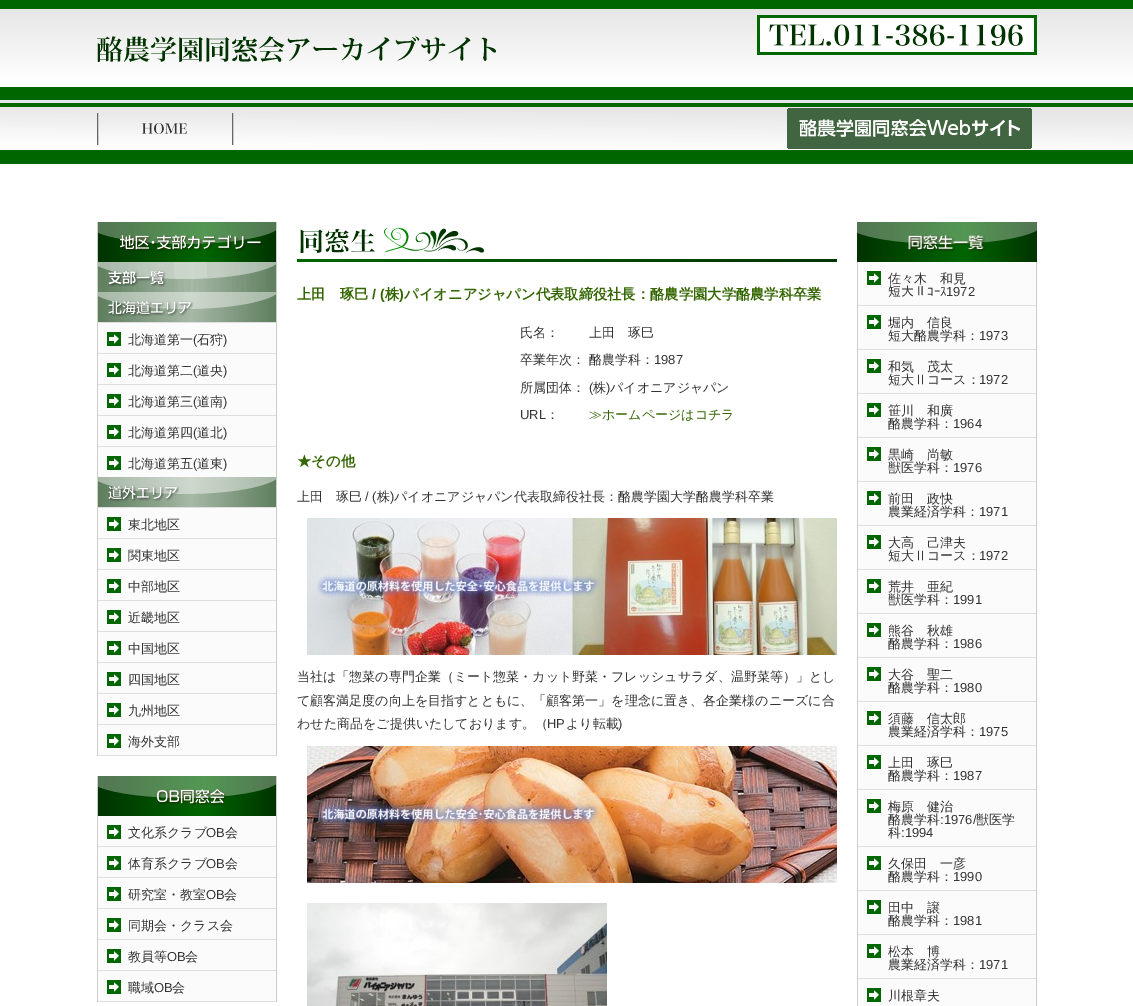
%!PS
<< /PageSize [1133 1006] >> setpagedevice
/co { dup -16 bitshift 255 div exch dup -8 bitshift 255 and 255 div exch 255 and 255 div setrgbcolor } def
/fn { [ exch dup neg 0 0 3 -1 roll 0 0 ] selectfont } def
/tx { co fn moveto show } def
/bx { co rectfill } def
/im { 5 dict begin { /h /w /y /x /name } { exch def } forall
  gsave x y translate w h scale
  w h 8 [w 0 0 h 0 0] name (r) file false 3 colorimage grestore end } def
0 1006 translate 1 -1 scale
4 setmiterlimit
0 0 1133 1006 16#FFFFFF bx
(media/1.raw) 0 0 1133 164 im
(media/2.raw) 97 36 399 26 im
(media/3.raw) 757 15 280 40 im
(media/4.raw) 97 113 137 32 im
(media/5.raw) 787 108 245 41 im
276 222 1 534 16#CCCCCC bx
97 222 1 534 16#CCCCCC bx
(media/6.raw) 98 222 178 40 im
(media/7.raw) 98 262 178 30 im
98 322 178 1 16#DFDFDF bx
(media/8.raw) 98 292 178 30 im
98 353 178 1 16#DFDFDF bx
98 323 178 30 16#FBFBFB bx
(media/9.raw) 107 332 14 14 im
98 384 178 1 16#DFDFDF bx
98 354 178 30 16#FBFBFB bx
(media/9.raw) 107 363 14 14 im
98 415 178 1 16#DFDFDF bx
98 385 178 30 16#FBFBFB bx
(media/9.raw) 107 394 14 14 im
98 446 178 1 16#DFDFDF bx
98 416 178 30 16#FBFBFB bx
(media/9.raw) 107 425 14 14 im
98 447 178 30 16#FBFBFB bx
(media/9.raw) 107 456 14 14 im
98 507 178 1 16#DFDFDF bx
(media/10.raw) 98 477 178 30 im
98 538 178 1 16#DFDFDF bx
98 508 178 30 16#FBFBFB bx
(media/9.raw) 107 517 14 14 im
98 569 178 1 16#DFDFDF bx
98 539 178 30 16#FBFBFB bx
(media/9.raw) 107 548 14 14 im
98 600 178 1 16#DFDFDF bx
98 570 178 30 16#FBFBFB bx
(media/9.raw) 107 579 14 14 im
98 631 178 1 16#DFDFDF bx
98 601 178 30 16#FBFBFB bx
(media/9.raw) 107 610 14 14 im
98 662 178 1 16#DFDFDF bx
98 632 178 30 16#FBFBFB bx
(media/9.raw) 107 641 14 14 im
98 693 178 1 16#DFDFDF bx
98 663 178 30 16#FBFBFB bx
(media/9.raw) 107 672 14 14 im
98 724 178 1 16#DFDFDF bx
98 694 178 30 16#FBFBFB bx
(media/9.raw) 107 703 14 14 im
98 755 178 1 16#DFDFDF bx
98 725 178 30 16#FBFBFB bx
(media/9.raw) 107 734 14 14 im
276 776 1 226 16#CCCCCC bx
97 776 1 226 16#CCCCCC bx
(media/11.raw) 98 776 178 40 im
98 846 178 1 16#DFDFDF bx
98 816 178 30 16#FBFBFB bx
(media/9.raw) 107 825 14 14 im
98 877 178 1 16#DFDFDF bx
98 847 178 30 16#FBFBFB bx
(media/9.raw) 107 856 14 14 im
98 908 178 1 16#DFDFDF bx
98 878 178 30 16#FBFBFB bx
(media/9.raw) 107 887 14 14 im
98 939 178 1 16#DFDFDF bx
98 909 178 30 16#FBFBFB bx
(media/9.raw) 107 918 14 14 im
98 970 178 1 16#DFDFDF bx
98 940 178 30 16#FBFBFB bx
(media/9.raw) 107 949 14 14 im
98 1001 178 1 16#DFDFDF bx
98 971 178 30 16#FBFBFB bx
(media/9.raw) 107 980 14 14 im
(media/12.raw) 297 228 540 34 im
(media/13.raw) 307 518 530 137 im
(media/14.raw) 307 746 530 137 im
(media/15.raw) 307 903 300 103 im
(media/16.raw) 857 222 180 40 im
1036 262 1 744 16#CCCCCC bx
857 262 1 744 16#CCCCCC bx
858 305 178 1 16#DFDFDF bx
858 262 178 43 16#FBFBFB bx
(media/9.raw) 867 271 14 14 im
858 349 178 1 16#DFDFDF bx
858 306 178 43 16#FBFBFB bx
(media/9.raw) 867 315 14 14 im
858 393 178 1 16#DFDFDF bx
858 350 178 43 16#FBFBFB bx
(media/9.raw) 867 359 14 14 im
858 437 178 1 16#DFDFDF bx
858 394 178 43 16#FBFBFB bx
(media/9.raw) 867 403 14 14 im
858 481 178 1 16#DFDFDF bx
858 438 178 43 16#FBFBFB bx
(media/9.raw) 867 447 14 14 im
858 525 178 1 16#DFDFDF bx
858 482 178 43 16#FBFBFB bx
(media/9.raw) 867 491 14 14 im
858 569 178 1 16#DFDFDF bx
858 526 178 43 16#FBFBFB bx
(media/9.raw) 867 535 14 14 im
858 613 178 1 16#DFDFDF bx
858 570 178 43 16#FBFBFB bx
(media/9.raw) 867 579 14 14 im
858 657 178 1 16#DFDFDF bx
858 614 178 43 16#FBFBFB bx
(media/9.raw) 867 623 14 14 im
858 701 178 1 16#DFDFDF bx
858 658 178 43 16#FBFBFB bx
(media/9.raw) 867 667 14 14 im
858 745 178 1 16#DFDFDF bx
858 702 178 43 16#FBFBFB bx
(media/9.raw) 867 711 14 14 im
858 789 178 1 16#DFDFDF bx
858 746 178 43 16#FBFBFB bx
(media/9.raw) 867 755 14 14 im
858 846 178 1 16#DFDFDF bx
858 790 178 56 16#FBFBFB bx
(media/9.raw) 867 799 14 14 im
858 890 178 1 16#DFDFDF bx
858 847 178 43 16#FBFBFB bx
(media/9.raw) 867 856 14 14 im
858 934 178 1 16#DFDFDF bx
858 891 178 43 16#FBFBFB bx
(media/9.raw) 867 900 14 14 im
858 978 178 1 16#DFDFDF bx
858 935 178 43 16#FBFBFB bx
(media/9.raw) 867 944 14 14 im
858 979 178 27 16#FBFBFB bx
(media/9.raw) 867 988 14 14 im
(北海道第一) 128 344 /WenQuanYiZenHei-Medium 13 16#333333 tx
(\() 193 344 /LiberationSans-Regular 13 16#333333 tx
(石狩) 197 344 /WenQuanYiZenHei-Medium 13 16#333333 tx
(\)) 223 344 /LiberationSans-Regular 13 16#333333 tx
(北海道第二) 128 375 /WenQuanYiZenHei-Medium 13 16#333333 tx
(\() 193 375 /LiberationSans-Regular 13 16#333333 tx
(道央) 197 375 /WenQuanYiZenHei-Medium 13 16#333333 tx
(\)) 223 375 /LiberationSans-Regular 13 16#333333 tx
(北海道第三) 128 406 /WenQuanYiZenHei-Medium 13 16#333333 tx
(\() 193 406 /LiberationSans-Regular 13 16#333333 tx
(道南) 197 406 /WenQuanYiZenHei-Medium 13 16#333333 tx
(\)) 223 406 /LiberationSans-Regular 13 16#333333 tx
(北海道第四) 128 437 /WenQuanYiZenHei-Medium 13 16#333333 tx
(\() 193 437 /LiberationSans-Regular 13 16#333333 tx
(道北) 197 437 /WenQuanYiZenHei-Medium 13 16#333333 tx
(\)) 223 437 /LiberationSans-Regular 13 16#333333 tx
(北海道第五) 128 468 /WenQuanYiZenHei-Medium 13 16#333333 tx
(\() 193 468 /LiberationSans-Regular 13 16#333333 tx
(道東) 197 468 /WenQuanYiZenHei-Medium 13 16#333333 tx
(\)) 223 468 /LiberationSans-Regular 13 16#333333 tx
(東北地区) 128 529 /WenQuanYiZenHei-Medium 13 16#333333 tx
(関東地区) 128 560 /WenQuanYiZenHei-Medium 13 16#333333 tx
(中部地区) 128 591 /WenQuanYiZenHei-Medium 13 16#333333 tx
(近畿地区) 128 622 /WenQuanYiZenHei-Medium 13 16#333333 tx
(中国地区) 128 653 /WenQuanYiZenHei-Medium 13 16#333333 tx
(四国地区) 128 684 /WenQuanYiZenHei-Medium 13 16#333333 tx
(九州地区) 128 715 /WenQuanYiZenHei-Medium 13 16#333333 tx
(海外支部) 128 746 /WenQuanYiZenHei-Medium 13 16#333333 tx
(文化系クラブ) 128 837 /WenQuanYiZenHei-Medium 13 16#333333 tx
(OB) 206 837 /LiberationSans-Regular 13 16#333333 tx
(会) 225 837 /WenQuanYiZenHei-Medium 13 16#333333 tx
(体育系クラブ) 128 868 /WenQuanYiZenHei-Medium 13 16#333333 tx
(OB) 206 868 /LiberationSans-Regular 13 16#333333 tx
(会) 225 868 /WenQuanYiZenHei-Medium 13 16#333333 tx
(研究室・教室) 128 899 /WenQuanYiZenHei-Medium 13 16#333333 tx
(OB) 206 899 /LiberationSans-Regular 13 16#333333 tx
(会) 224 899 /WenQuanYiZenHei-Medium 13 16#333333 tx
(同期会・クラス会) 128 930 /WenQuanYiZenHei-Medium 13 16#333333 tx
(教員等) 128 961 /WenQuanYiZenHei-Medium 13 16#333333 tx
(OB) 167 961 /LiberationSans-Regular 13 16#333333 tx
(会) 185 961 /WenQuanYiZenHei-Medium 13 16#333333 tx
(職域) 128 992 /WenQuanYiZenHei-Medium 13 16#333333 tx
(OB) 154 992 /LiberationSans-Regular 13 16#333333 tx
(会) 172 992 /WenQuanYiZenHei-Medium 13 16#333333 tx
(上田　琢巳) 297 299 /WenQuanYiZenHei-Bold 14.3 16#336600 tx
(/ \() 372 299 /LiberationSans-Bold 14.3 16#336600 tx
(株) 385 299 /WenQuanYiZenHei-Bold 14.3 16#336600 tx
(\)) 399 299 /LiberationSans-Bold 14.3 16#336600 tx
(パイオニアジャパン代表取締役社長：酪農学園大学酪農学科卒業) 404 299 /WenQuanYiZenHei-Bold 14.3 16#336600 tx
(氏名：) 520 337 /WenQuanYiZenHei-Medium 13 16#333333 tx
(上田　琢巳) 589 337 /WenQuanYiZenHei-Medium 13 16#333333 tx
(卒業年次： 酪農学科：) 520 364 /WenQuanYiZenHei-Medium 13 16#333333 tx
(1987) 654 364 /LiberationSans-Regular 13 16#333333 tx
(所属団体：) 520 392 /WenQuanYiZenHei-Medium 13 16#333333 tx
(\() 589 392 /LiberationSans-Regular 13 16#333333 tx
(株) 593 392 /WenQuanYiZenHei-Medium 13 16#333333 tx
(\)) 606 392 /LiberationSans-Regular 13 16#333333 tx
(パイオニアジャパン) 610 392 /WenQuanYiZenHei-Medium 13 16#333333 tx
(URL) 520 419 /LiberationSans-Regular 13 16#333333 tx
(：) 546 419 /WenQuanYiZenHei-Medium 13 16#333333 tx
(≫ホームページはコチラ) 589 419 /WenQuanYiZenHei-Medium 13 16#336600 tx
(★その他) 297 466 /WenQuanYiZenHei-Bold 14.3 16#336600 tx
(上田　琢巳) 297 501 /WenQuanYiZenHei-Medium 13 16#333333 tx
(/ \() 365 501 /LiberationSans-Regular 13 16#333333 tx
(株) 377 501 /WenQuanYiZenHei-Medium 13 16#333333 tx
(\)) 390 501 /LiberationSans-Regular 13 16#333333 tx
(パイオニアジャパン代表取締役社長：酪農学園大学酪農学科卒業) 394 501 /WenQuanYiZenHei-Medium 13 16#333333 tx
(当社は「惣菜の専門企業（ミート惣菜・カット野菜・フレッシュサラダ、温野菜等）」とし) 297 681 /WenQuanYiZenHei-Medium 13 16#333333 tx
(て顧客満足度の向上を目指すとともに、「顧客第一」を理念に置き、各企業様のニーズに合) 297 705 /WenQuanYiZenHei-Medium 13 16#333333 tx
(わせた商品をご提供いたしております。（) 297 728 /WenQuanYiZenHei-Medium 13 16#333333 tx
(HP) 547 728 /LiberationSans-Regular 13 16#333333 tx
(より転載) 566 728 /WenQuanYiZenHei-Medium 13 16#333333 tx
(\)) 618 728 /LiberationSans-Regular 13 16#333333 tx
(佐々木　和見) 888 283 /WenQuanYiZenHei-Medium 13 16#333333 tx
(短大Ⅱｺｰｽ) 888 296 /IPAPGothic-Regular 13 16#333333 tx
(1972) 946 296 /LiberationSans-Regular 13 16#333333 tx
(堀内　信良) 888 327 /WenQuanYiZenHei-Medium 13 16#333333 tx
(短大酪農学科：) 888 340 /WenQuanYiZenHei-Medium 13 16#333333 tx
(1973) 979 340 /LiberationSans-Regular 13 16#333333 tx
(和気　茂太) 888 371 /WenQuanYiZenHei-Medium 13 16#333333 tx
(短大Ⅱコース：) 888 384 /WenQuanYiZenHei-Medium 13 16#333333 tx
(1972) 979 384 /LiberationSans-Regular 13 16#333333 tx
(笹川　和廣) 888 415 /WenQuanYiZenHei-Medium 13 16#333333 tx
(酪農学科：) 888 428 /WenQuanYiZenHei-Medium 13 16#333333 tx
(1964) 953 428 /LiberationSans-Regular 13 16#333333 tx
(黒崎　尚敏) 888 459 /WenQuanYiZenHei-Medium 13 16#333333 tx
(獣医学科：) 888 472 /WenQuanYiZenHei-Medium 13 16#333333 tx
(1976) 953 472 /LiberationSans-Regular 13 16#333333 tx
(前田　政快) 888 503 /WenQuanYiZenHei-Medium 13 16#333333 tx
(農業経済学科：) 888 516 /WenQuanYiZenHei-Medium 13 16#333333 tx
(1971) 979 516 /LiberationSans-Regular 13 16#333333 tx
(大高　己津夫) 888 547 /WenQuanYiZenHei-Medium 13 16#333333 tx
(短大Ⅱコース：) 888 560 /WenQuanYiZenHei-Medium 13 16#333333 tx
(1972) 979 560 /LiberationSans-Regular 13 16#333333 tx
(荒井　亜紀) 888 591 /WenQuanYiZenHei-Medium 13 16#333333 tx
(獣医学科：) 888 604 /WenQuanYiZenHei-Medium 13 16#333333 tx
(1991) 953 604 /LiberationSans-Regular 13 16#333333 tx
(熊谷　秋雄) 888 635 /WenQuanYiZenHei-Medium 13 16#333333 tx
(酪農学科：) 888 648 /WenQuanYiZenHei-Medium 13 16#333333 tx
(1986) 953 648 /LiberationSans-Regular 13 16#333333 tx
(大谷　聖二) 888 679 /WenQuanYiZenHei-Medium 13 16#333333 tx
(酪農学科：) 888 692 /WenQuanYiZenHei-Medium 13 16#333333 tx
(1980) 953 692 /LiberationSans-Regular 13 16#333333 tx
(須藤　信太郎) 888 723 /WenQuanYiZenHei-Medium 13 16#333333 tx
(農業経済学科：) 888 736 /WenQuanYiZenHei-Medium 13 16#333333 tx
(1975) 979 736 /LiberationSans-Regular 13 16#333333 tx
(上田　琢巳) 888 767 /WenQuanYiZenHei-Medium 13 16#333333 tx
(酪農学科：) 888 780 /WenQuanYiZenHei-Medium 13 16#333333 tx
(1987) 953 780 /LiberationSans-Regular 13 16#333333 tx
(梅原　健治) 888 811 /WenQuanYiZenHei-Medium 13 16#333333 tx
(酪農学科) 888 824 /WenQuanYiZenHei-Medium 13 16#333333 tx
(:1976/) 940 824 /LiberationSans-Regular 13 16#333333 tx
(獣医学) 976 824 /WenQuanYiZenHei-Medium 13 16#333333 tx
(科) 888 837 /WenQuanYiZenHei-Medium 13 16#333333 tx
(:1994) 901 837 /LiberationSans-Regular 13 16#333333 tx
(久保田　一彦) 888 868 /WenQuanYiZenHei-Medium 13 16#333333 tx
(酪農学科：) 888 881 /WenQuanYiZenHei-Medium 13 16#333333 tx
(1990) 953 881 /LiberationSans-Regular 13 16#333333 tx
(田中　譲) 888 912 /WenQuanYiZenHei-Medium 13 16#333333 tx
(酪農学科：) 888 925 /WenQuanYiZenHei-Medium 13 16#333333 tx
(1981) 953 925 /LiberationSans-Regular 13 16#333333 tx
(松本　博) 888 956 /WenQuanYiZenHei-Medium 13 16#333333 tx
(農業経済学科：) 888 969 /WenQuanYiZenHei-Medium 13 16#333333 tx
(1971) 979 969 /LiberationSans-Regular 13 16#333333 tx
(川根章夫) 888 1000 /WenQuanYiZenHei-Medium 13 16#333333 tx
showpage
